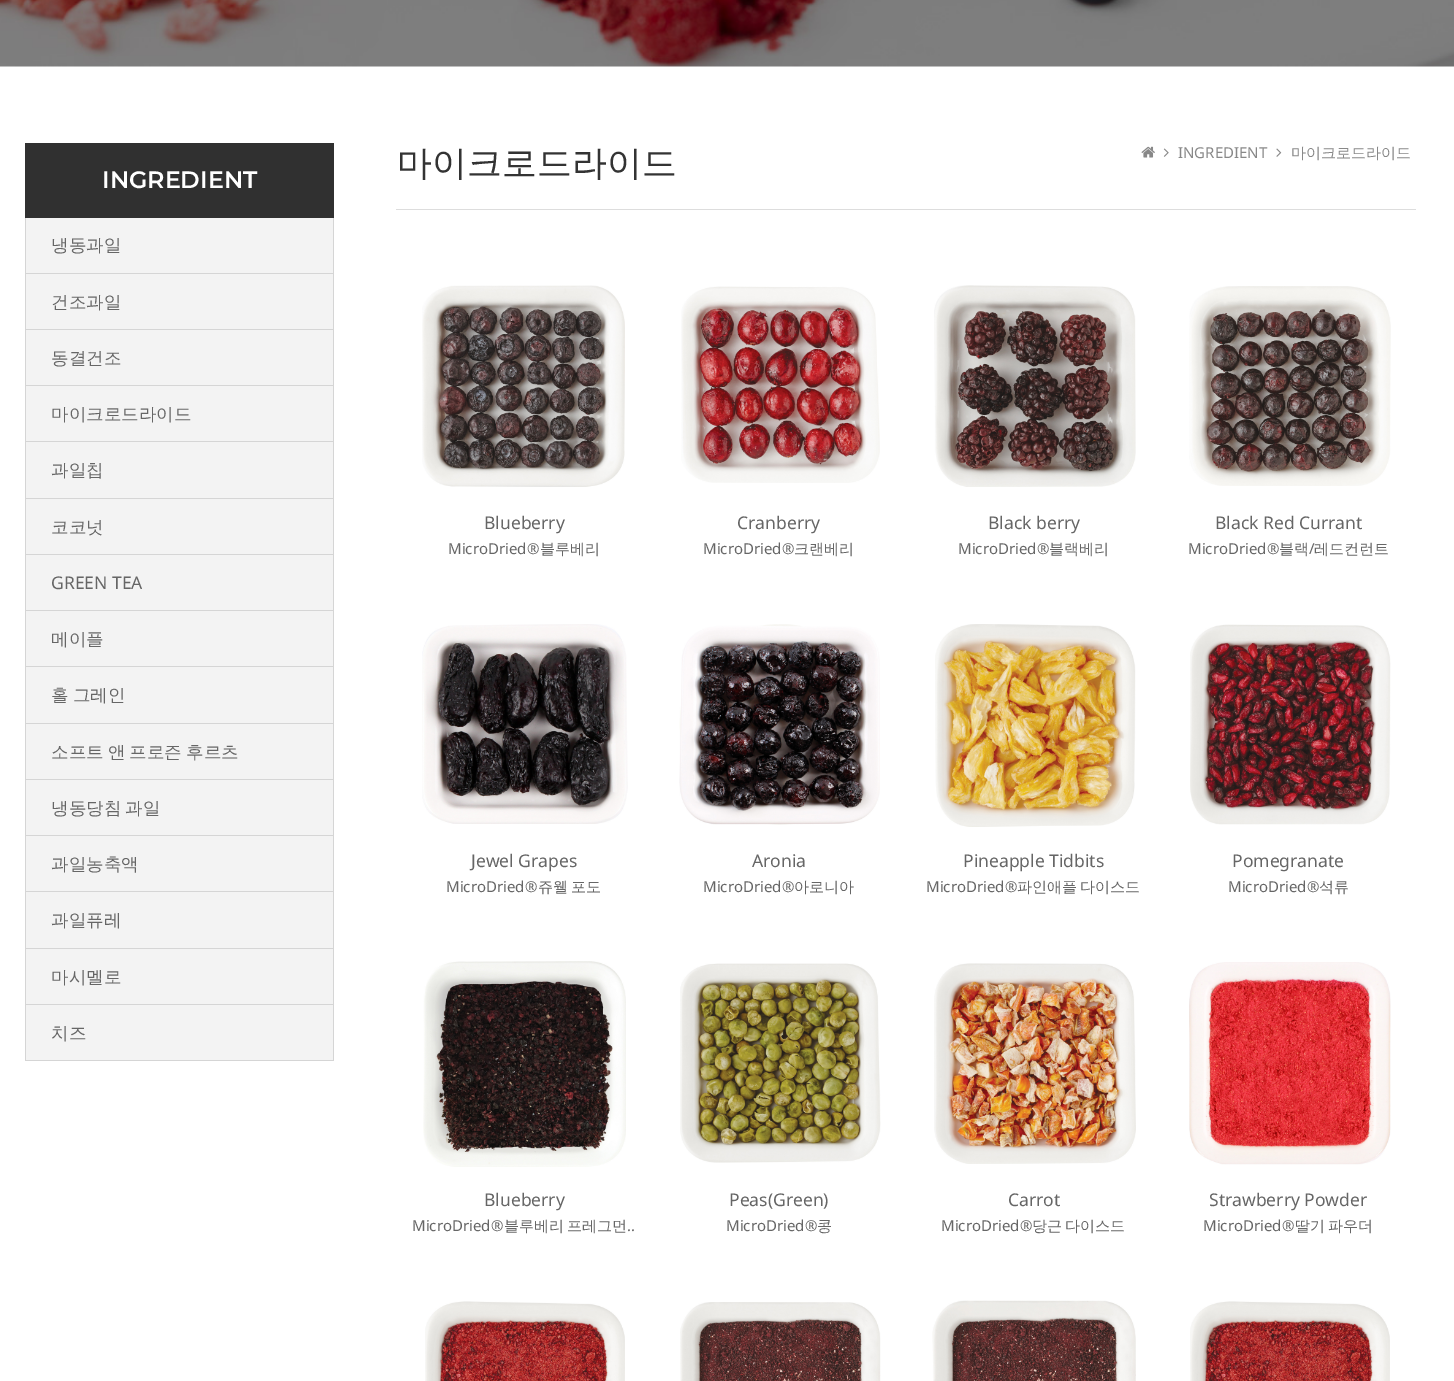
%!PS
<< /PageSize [1454 1381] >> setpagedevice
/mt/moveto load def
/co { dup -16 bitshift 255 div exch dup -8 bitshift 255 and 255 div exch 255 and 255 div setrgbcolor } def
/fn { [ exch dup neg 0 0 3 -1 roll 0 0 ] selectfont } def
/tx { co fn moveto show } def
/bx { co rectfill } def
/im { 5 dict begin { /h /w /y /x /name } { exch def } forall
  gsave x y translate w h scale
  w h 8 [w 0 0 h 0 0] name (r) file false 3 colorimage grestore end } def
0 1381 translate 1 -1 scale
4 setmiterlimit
0 0 1454 1381 16#FFFFFF bx
(media/1.raw) 0 0 1454 67 im
25 143 309 75 16#303030 bx
26 218 307 55 16#F3F3F3 bx
333 218 1 843 16#D5D5D5 bx
25 273 309 1 16#D5D5D5 bx
25 218 1 56 16#D5D5D5 bx
26 274 307 55 16#F3F3F3 bx
25 329 309 1 16#D5D5D5 bx
25 274 1 56 16#D5D5D5 bx
26 330 307 55 16#F3F3F3 bx
25 385 309 1 16#D5D5D5 bx
25 330 1 56 16#D5D5D5 bx
26 386 307 112 16#F3F3F3 bx
25 441 309 1 16#D5D5D5 bx
25 386 1 57 16#D5D5D5 bx
25 498 309 1 16#D5D5D5 bx
25 443 1 56 16#D5D5D5 bx
26 499 307 55 16#F3F3F3 bx
25 554 309 1 16#D5D5D5 bx
25 499 1 56 16#D5D5D5 bx
26 555 307 55 16#F3F3F3 bx
25 610 309 1 16#D5D5D5 bx
25 555 1 56 16#D5D5D5 bx
26 611 307 112 16#F3F3F3 bx
25 666 309 1 16#D5D5D5 bx
25 611 1 57 16#D5D5D5 bx
25 723 309 1 16#D5D5D5 bx
25 668 1 56 16#D5D5D5 bx
26 724 307 55 16#F3F3F3 bx
25 779 309 1 16#D5D5D5 bx
25 724 1 56 16#D5D5D5 bx
26 780 307 55 16#F3F3F3 bx
25 835 309 1 16#D5D5D5 bx
25 780 1 56 16#D5D5D5 bx
26 836 307 112 16#F3F3F3 bx
25 891 309 1 16#D5D5D5 bx
25 836 1 57 16#D5D5D5 bx
25 948 309 1 16#D5D5D5 bx
25 893 1 56 16#D5D5D5 bx
26 949 307 55 16#F3F3F3 bx
25 1004 309 1 16#D5D5D5 bx
25 949 1 56 16#D5D5D5 bx
26 1005 307 55 16#F3F3F3 bx
25 1060 309 1 16#D5D5D5 bx
25 1005 1 56 16#D5D5D5 bx
396 209 1020 1 16#DDDDDD bx
(media/2.raw) 1141 146 14 12 im
(media/3.raw) 1163 148 6 9 im
(media/4.raw) 1276 148 6 9 im
(media/5.raw) 422 285 203 202 im
(media/6.raw) 681 286 199 197 im
(media/7.raw) 934 285 202 202 im
(media/8.raw) 1189 286 202 200 im
(media/9.raw) 422 624 206 200 im
(media/10.raw) 679 624 201 201 im
(media/11.raw) 935 624 201 203 im
(media/12.raw) 1190 624 201 201 im
(media/13.raw) 423 961 203 206 im
(media/14.raw) 680 963 201 200 im
(media/15.raw) 934 963 202 201 im
(media/16.raw) 1189 962 202 203 im
(media/17.raw) 425 1301 200 80 im
(media/18.raw) 680 1302 201 79 im
(media/19.raw) 932 1300 204 81 im
(media/20.raw) 1190 1301 200 80 im
(INGREDIENT) 102 188 /Montserrat-SemiBold 23.75 16#FFFFFF tx
(냉동과일) 51 251 /WenQuanYiZenHei-Medium 17.5 16#666666 tx
(건조과일) 51 308 /WenQuanYiZenHei-Medium 17.5 16#666666 tx
(동결건조) 51 364 /WenQuanYiZenHei-Medium 17.5 16#666666 tx
(마이크로드라이드) 51 420 /WenQuanYiZenHei-Medium 17.5 16#666666 tx
(과일칩) 51 476 /WenQuanYiZenHei-Medium 17.5 16#666666 tx
(코코넛) 51 533 /WenQuanYiZenHei-Medium 17.5 16#666666 tx
(GREEN TEA) 51 589 /NotoSans-Regular 17.5 16#666666 tx
(메이플) 51 645 /WenQuanYiZenHei-Medium 17.5 16#666666 tx
51 701 mt -1 0 32 (홀 그레인) widthshow
51 758 mt -1 0 32 (소프트 앤 프로즌 후르츠) widthshow
51 814 mt -1 0 32 (냉동당침 과일) widthshow
(과일농축액) 51 870 /WenQuanYiZenHei-Medium 17.5 16#666666 tx
(과일퓨레) 51 926 /WenQuanYiZenHei-Medium 17.5 16#666666 tx
(마시멜로) 51 983 /WenQuanYiZenHei-Medium 17.5 16#666666 tx
(치즈) 51 1039 /WenQuanYiZenHei-Medium 17.5 16#666666 tx
(마이크로드라이드) 397 175 /WenQuanYiZenHei-Medium 35 16#333333 tx
(INGREDIENT) 1178 158 /NotoSans-Regular 15 16#888888 tx
(마이크로드라이드) 1291 158 /WenQuanYiZenHei-Medium 15 16#888888 tx
(Blueberry) 484 529 /NotoSans-Regular 17.5 16#666666 tx
(MicroDried®) 448 554 /NotoSans-Regular 15 16#666666 tx
(블루베리) 540 554 /WenQuanYiZenHei-Medium 15 16#666666 tx
(Cranberry) 737 529 /NotoSans-Regular 17.5 16#666666 tx
(MicroDried®) 703 554 /NotoSans-Regular 15 16#666666 tx
(크랜베리) 794 554 /WenQuanYiZenHei-Medium 15 16#666666 tx
(Black berry) 988 529 /NotoSans-Regular 17.5 16#666666 tx
(MicroDried®) 958 554 /NotoSans-Regular 15 16#666666 tx
(블랙베리) 1049 554 /WenQuanYiZenHei-Medium 15 16#666666 tx
(Black Red Currant) 1215 529 /NotoSans-Regular 17.5 16#666666 tx
(MicroDried®) 1188 554 /NotoSans-Regular 15 16#666666 tx
(블랙) 1279 554 /WenQuanYiZenHei-Medium 15 16#666666 tx
(/) 1309 554 /NotoSans-Regular 15 16#666666 tx
(레드컨런트) 1314 554 /WenQuanYiZenHei-Medium 15 16#666666 tx
(Jewel Grapes) 471 867 /NotoSans-Regular 17.5 16#666666 tx
(MicroDried®) 446 892 /NotoSans-Regular 15 16#666666 tx
/WenQuanYiZenHei-Medium 15 fn
538 892 mt -1 0 32 (쥬웰 포도) widthshow
(Aronia) 752 867 /NotoSans-Regular 17.5 16#666666 tx
(MicroDried®) 703 892 /NotoSans-Regular 15 16#666666 tx
(아로니아) 794 892 /WenQuanYiZenHei-Medium 15 16#666666 tx
(Pineapple Tidbits) 963 867 /NotoSans-Regular 17.5 16#666666 tx
(MicroDried®) 926 892 /NotoSans-Regular 15 16#666666 tx
/WenQuanYiZenHei-Medium 15 fn
1017 892 mt -1 0 32 (파인애플 다이스드) widthshow
(Pomegranate) 1232 867 /NotoSans-Regular 17.5 16#666666 tx
(MicroDried®) 1228 892 /NotoSans-Regular 15 16#666666 tx
(석류) 1319 892 /WenQuanYiZenHei-Medium 15 16#666666 tx
(Blueberry) 484 1206 /NotoSans-Regular 17.5 16#666666 tx
(MicroDried®) 412 1231 /NotoSans-Regular 15 16#666666 tx
/WenQuanYiZenHei-Medium 15 fn
504 1231 mt -1 0 32 (블루베리 프레그먼) widthshow
(..) 627 1231 /NotoSans-Regular 15 16#666666 tx
(Peas\(Green\)) 729 1206 /NotoSans-Regular 17.5 16#666666 tx
(MicroDried®) 726 1231 /NotoSans-Regular 15 16#666666 tx
(콩) 817 1231 /WenQuanYiZenHei-Medium 15 16#666666 tx
(Carrot) 1008 1206 /NotoSans-Regular 17.5 16#666666 tx
(MicroDried®) 941 1231 /NotoSans-Regular 15 16#666666 tx
/WenQuanYiZenHei-Medium 15 fn
1032 1231 mt -1 0 32 (당근 다이스드) widthshow
(Strawberry Powder) 1209 1206 /NotoSans-Regular 17.5 16#666666 tx
(MicroDried®) 1203 1231 /NotoSans-Regular 15 16#666666 tx
/WenQuanYiZenHei-Medium 15 fn
1295 1231 mt -1 0 32 (딸기 파우더) widthshow
showpage
